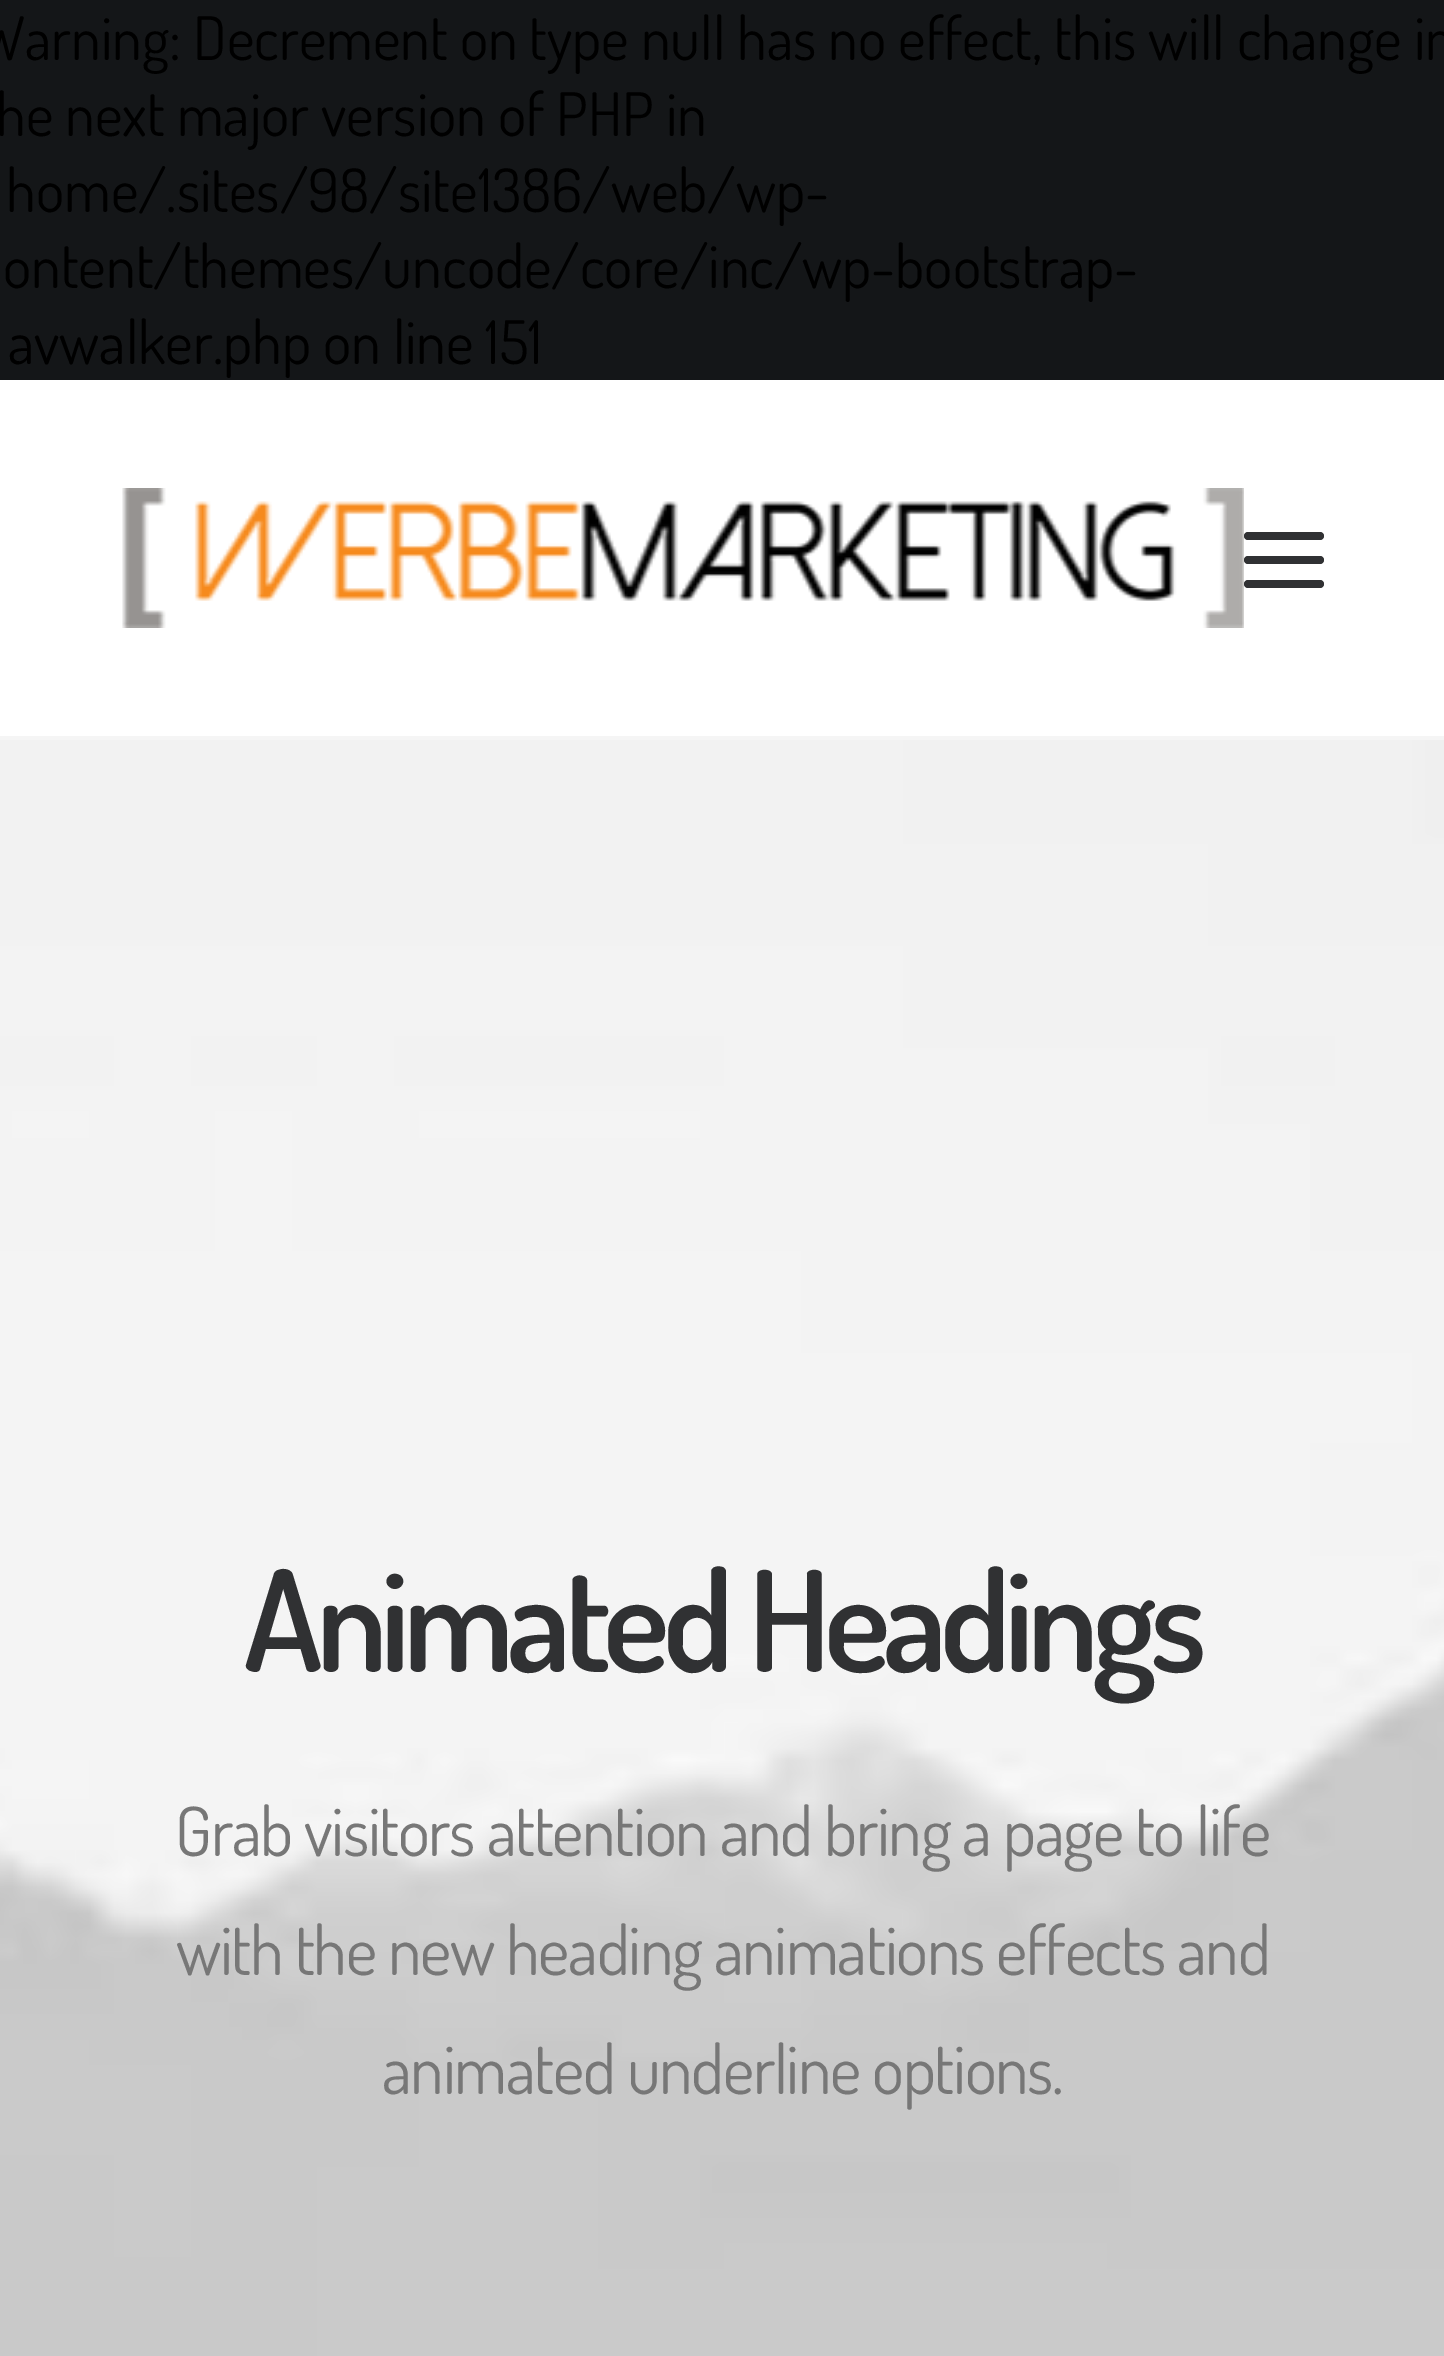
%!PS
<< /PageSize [1444 2356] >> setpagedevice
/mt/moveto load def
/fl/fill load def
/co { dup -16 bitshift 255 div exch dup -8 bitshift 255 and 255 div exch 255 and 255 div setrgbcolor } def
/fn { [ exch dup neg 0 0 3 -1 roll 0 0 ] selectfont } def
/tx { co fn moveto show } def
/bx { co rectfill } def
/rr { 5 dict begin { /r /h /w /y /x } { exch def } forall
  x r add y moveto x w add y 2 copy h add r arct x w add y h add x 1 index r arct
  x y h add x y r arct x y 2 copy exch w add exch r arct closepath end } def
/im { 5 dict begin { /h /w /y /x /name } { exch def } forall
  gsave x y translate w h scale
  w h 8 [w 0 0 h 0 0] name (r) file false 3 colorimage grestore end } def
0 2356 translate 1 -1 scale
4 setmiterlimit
0 0 1444 2356 16#141618 bx
0 380 1444 356 16#FFFFFF bx
0 736 1444 4 16#F5F5F5 bx
(media/1.raw) 122 488 1122 140 im
16#303133 co
1244 556 80 8 4 rr fl
1244 532 80 8 4 rr fl
1244 580 80 8 4 rr fl
(media/2.raw) 0 740 1444 1616 im
(Warning: Decrement on type null has no effect, this will change in) -22 60 /Dosis-Regular 60 16#000000 tx
(he next major version of PHP in) -4 136 /Dosis-Regular 60 16#000000 tx
(home/.sites/98/site1386/web/wp-) 6 212 /Dosis-Regular 60 16#000000 tx
(ontent/themes/uncode/core/inc/wp-bootstrap-) 3 288 /Dosis-Regular 60 16#000000 tx
(avwalker.php on line 151) 8 364 /Dosis-Regular 60 16#000000 tx
/Dosis-SemiBold 140 fn
16#303133 co
244 1672 mt -7 0 (Animated Headings) ashow
/Dosis-Regular 68 fn
16#777777 co
175 1856 mt -1.35 0 (Grab visitors attention and bring a page to life) ashow
176 1975 mt -1.35 0 (with the new heading animations effects and) ashow
382 2094 mt -1.35 0 (animated underline options.) ashow
showpage
